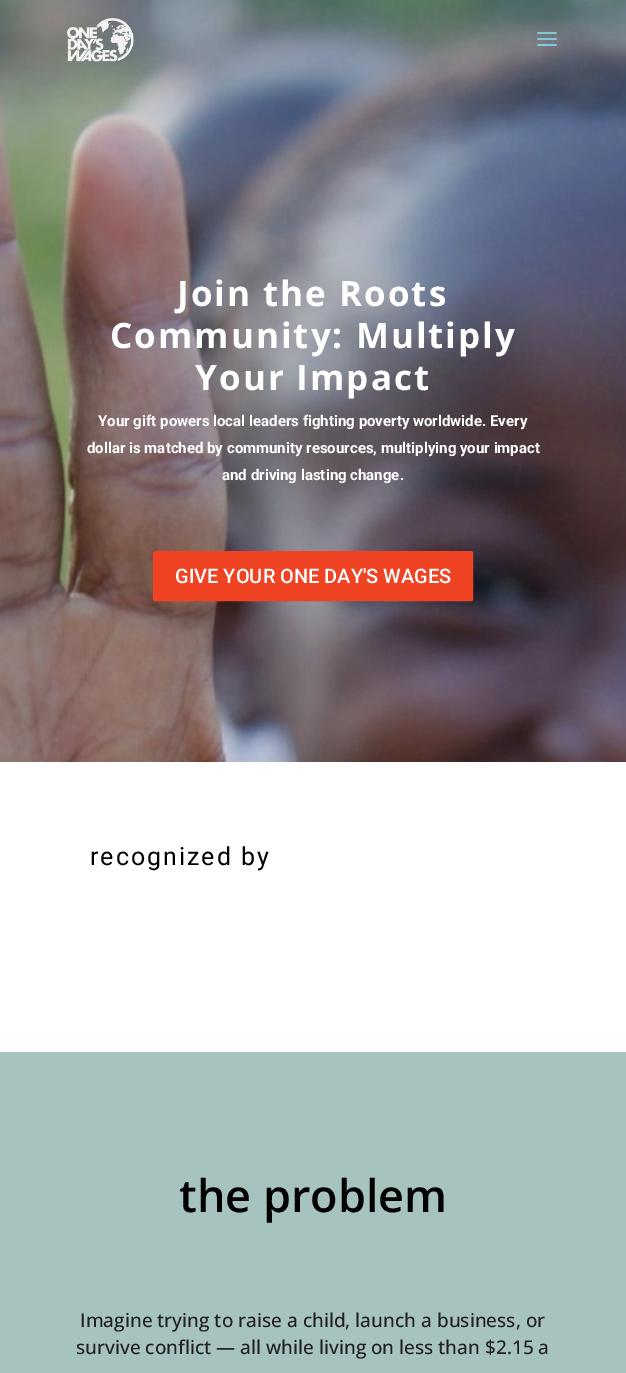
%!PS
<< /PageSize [626 1373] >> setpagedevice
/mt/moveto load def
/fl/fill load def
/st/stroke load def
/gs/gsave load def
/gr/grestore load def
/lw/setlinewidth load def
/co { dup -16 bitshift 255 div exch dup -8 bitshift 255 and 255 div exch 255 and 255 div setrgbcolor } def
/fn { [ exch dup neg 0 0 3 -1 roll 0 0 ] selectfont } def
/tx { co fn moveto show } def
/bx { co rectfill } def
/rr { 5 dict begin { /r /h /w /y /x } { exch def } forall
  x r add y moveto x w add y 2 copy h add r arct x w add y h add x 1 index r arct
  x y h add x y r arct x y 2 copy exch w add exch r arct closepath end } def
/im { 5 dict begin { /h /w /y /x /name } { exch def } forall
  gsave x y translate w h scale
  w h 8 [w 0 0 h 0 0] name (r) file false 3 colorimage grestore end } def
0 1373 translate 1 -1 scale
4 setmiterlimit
0 0 626 1373 16#FFFFFF bx
(media/3.raw) 0 0 626 762 im
(media/1.raw) 67 18 67 44 im
(media/2.raw) 537 32 20 14 im
16#F04323 co
154 552 318 48 1 rr gs fl gr
2 lw
st
0 1052 626 321 16#A6C3BF bx
/OpenSans-Bold 35 fn
16#FFFFFF co
177 306 mt 2 0 (Join the Roots) ashow
110 348 mt 2 0 (Community: Multiply) ashow
195 390 mt 2 0 (Your Impact) ashow
(Your gift powers local leaders fighting poverty worldwide. Every) 98 426 /Roboto-Bold 15 16#FFFFFF tx
(dollar is matched by community resources, multiplying your impact) 87 453 /Roboto-Bold 15 16#FFFFFF tx
(and driving lasting change.) 222 480 /Roboto-Bold 15 16#FFFFFF tx
(GIVE YOUR ONE DAY'S WAGES) 175 583 /Roboto-Medium 20 16#FFFFFF tx
/Roboto-Regular 25 fn
16#000000 co
90 865 mt 2 0 (recognized by) ashow
(the problem) 179 1212 /OpenSans-SemiBold 45 16#000000 tx
(Imagine trying to raise a child, launch a business, or) 80 1327 /OpenSans-Medium 19 16#212121 tx
(survive conflict — all while living on less than $2.15 a) 76 1354 /OpenSans-Medium 19 16#212121 tx
showpage
